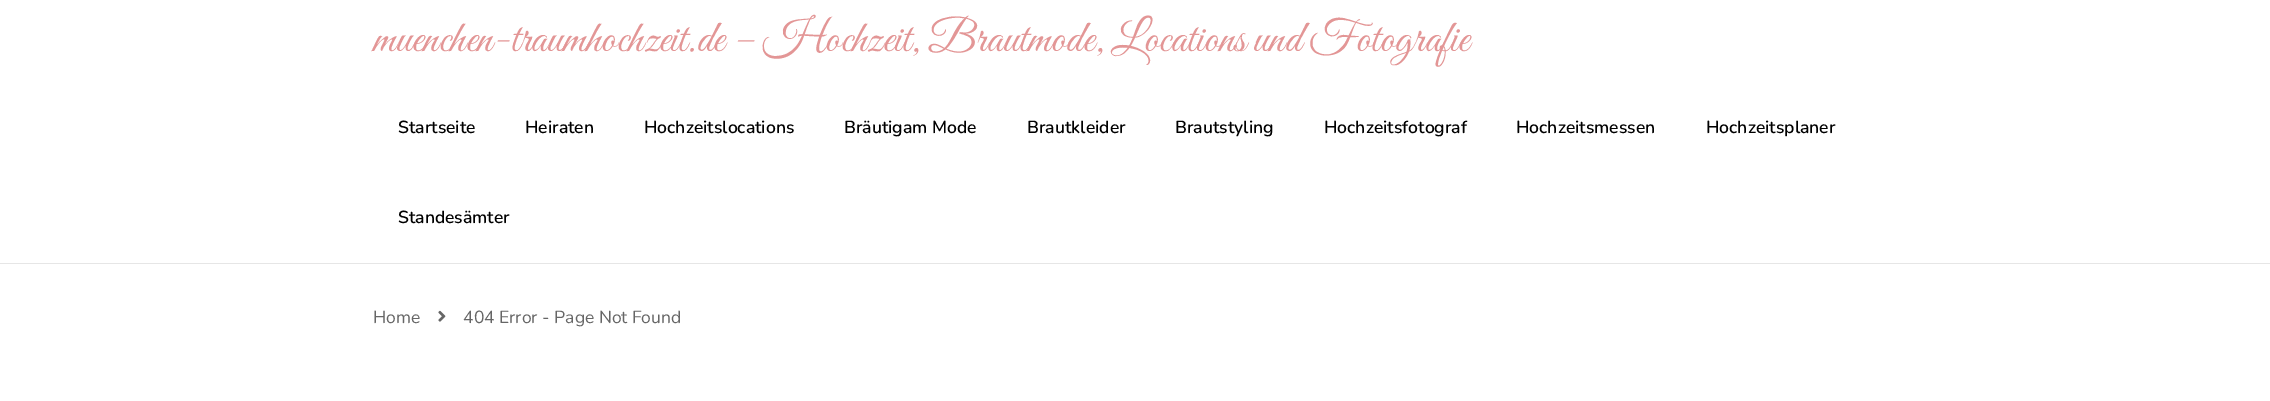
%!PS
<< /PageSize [2270 401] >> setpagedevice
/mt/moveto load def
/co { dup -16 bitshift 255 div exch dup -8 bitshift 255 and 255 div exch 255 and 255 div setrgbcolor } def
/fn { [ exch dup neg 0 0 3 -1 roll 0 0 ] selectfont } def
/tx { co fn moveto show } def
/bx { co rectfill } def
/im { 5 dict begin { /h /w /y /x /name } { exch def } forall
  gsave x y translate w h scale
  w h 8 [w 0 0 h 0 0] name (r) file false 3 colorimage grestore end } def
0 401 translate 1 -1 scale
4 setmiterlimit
0 0 2270 401 16#FFFFFF bx
0 263 2270 1 16#E6E6E6 bx
(media/1.raw) 438 310 8 12 im
/GreatVibes-Regular 45 fn
16#E39696 co
373 51 mt -.5 0 32 (muenchen-traumhochzeit.de – Hochzeit, Brautmode, Locations und Fotografie) widthshow
(Startseite) 398 133 /Nunito-SemiBold 17.5 16#000000 tx
(Heiraten) 525 133 /Nunito-SemiBold 17.5 16#000000 tx
(Hochzeitslocations) 644 133 /Nunito-SemiBold 17.5 16#000000 tx
(Bräutigam Mode) 844 133 /Nunito-SemiBold 17.5 16#000000 tx
(Brautkleider) 1027 133 /Nunito-SemiBold 17.5 16#000000 tx
(Brautstyling) 1175 133 /Nunito-SemiBold 17.5 16#000000 tx
(Hochzeitsfotograf) 1324 133 /Nunito-SemiBold 17.5 16#000000 tx
(Hochzeitsmessen) 1516 133 /Nunito-SemiBold 17.5 16#000000 tx
(Hochzeitsplaner) 1706 133 /Nunito-SemiBold 17.5 16#000000 tx
(Standesämter) 398 223 /Nunito-SemiBold 17.5 16#000000 tx
(Home) 373 323 /Nunito-Regular 17.5 16#666666 tx
(404 Error - Page Not Found) 463 323 /Nunito-Regular 17.5 16#666666 tx
showpage
